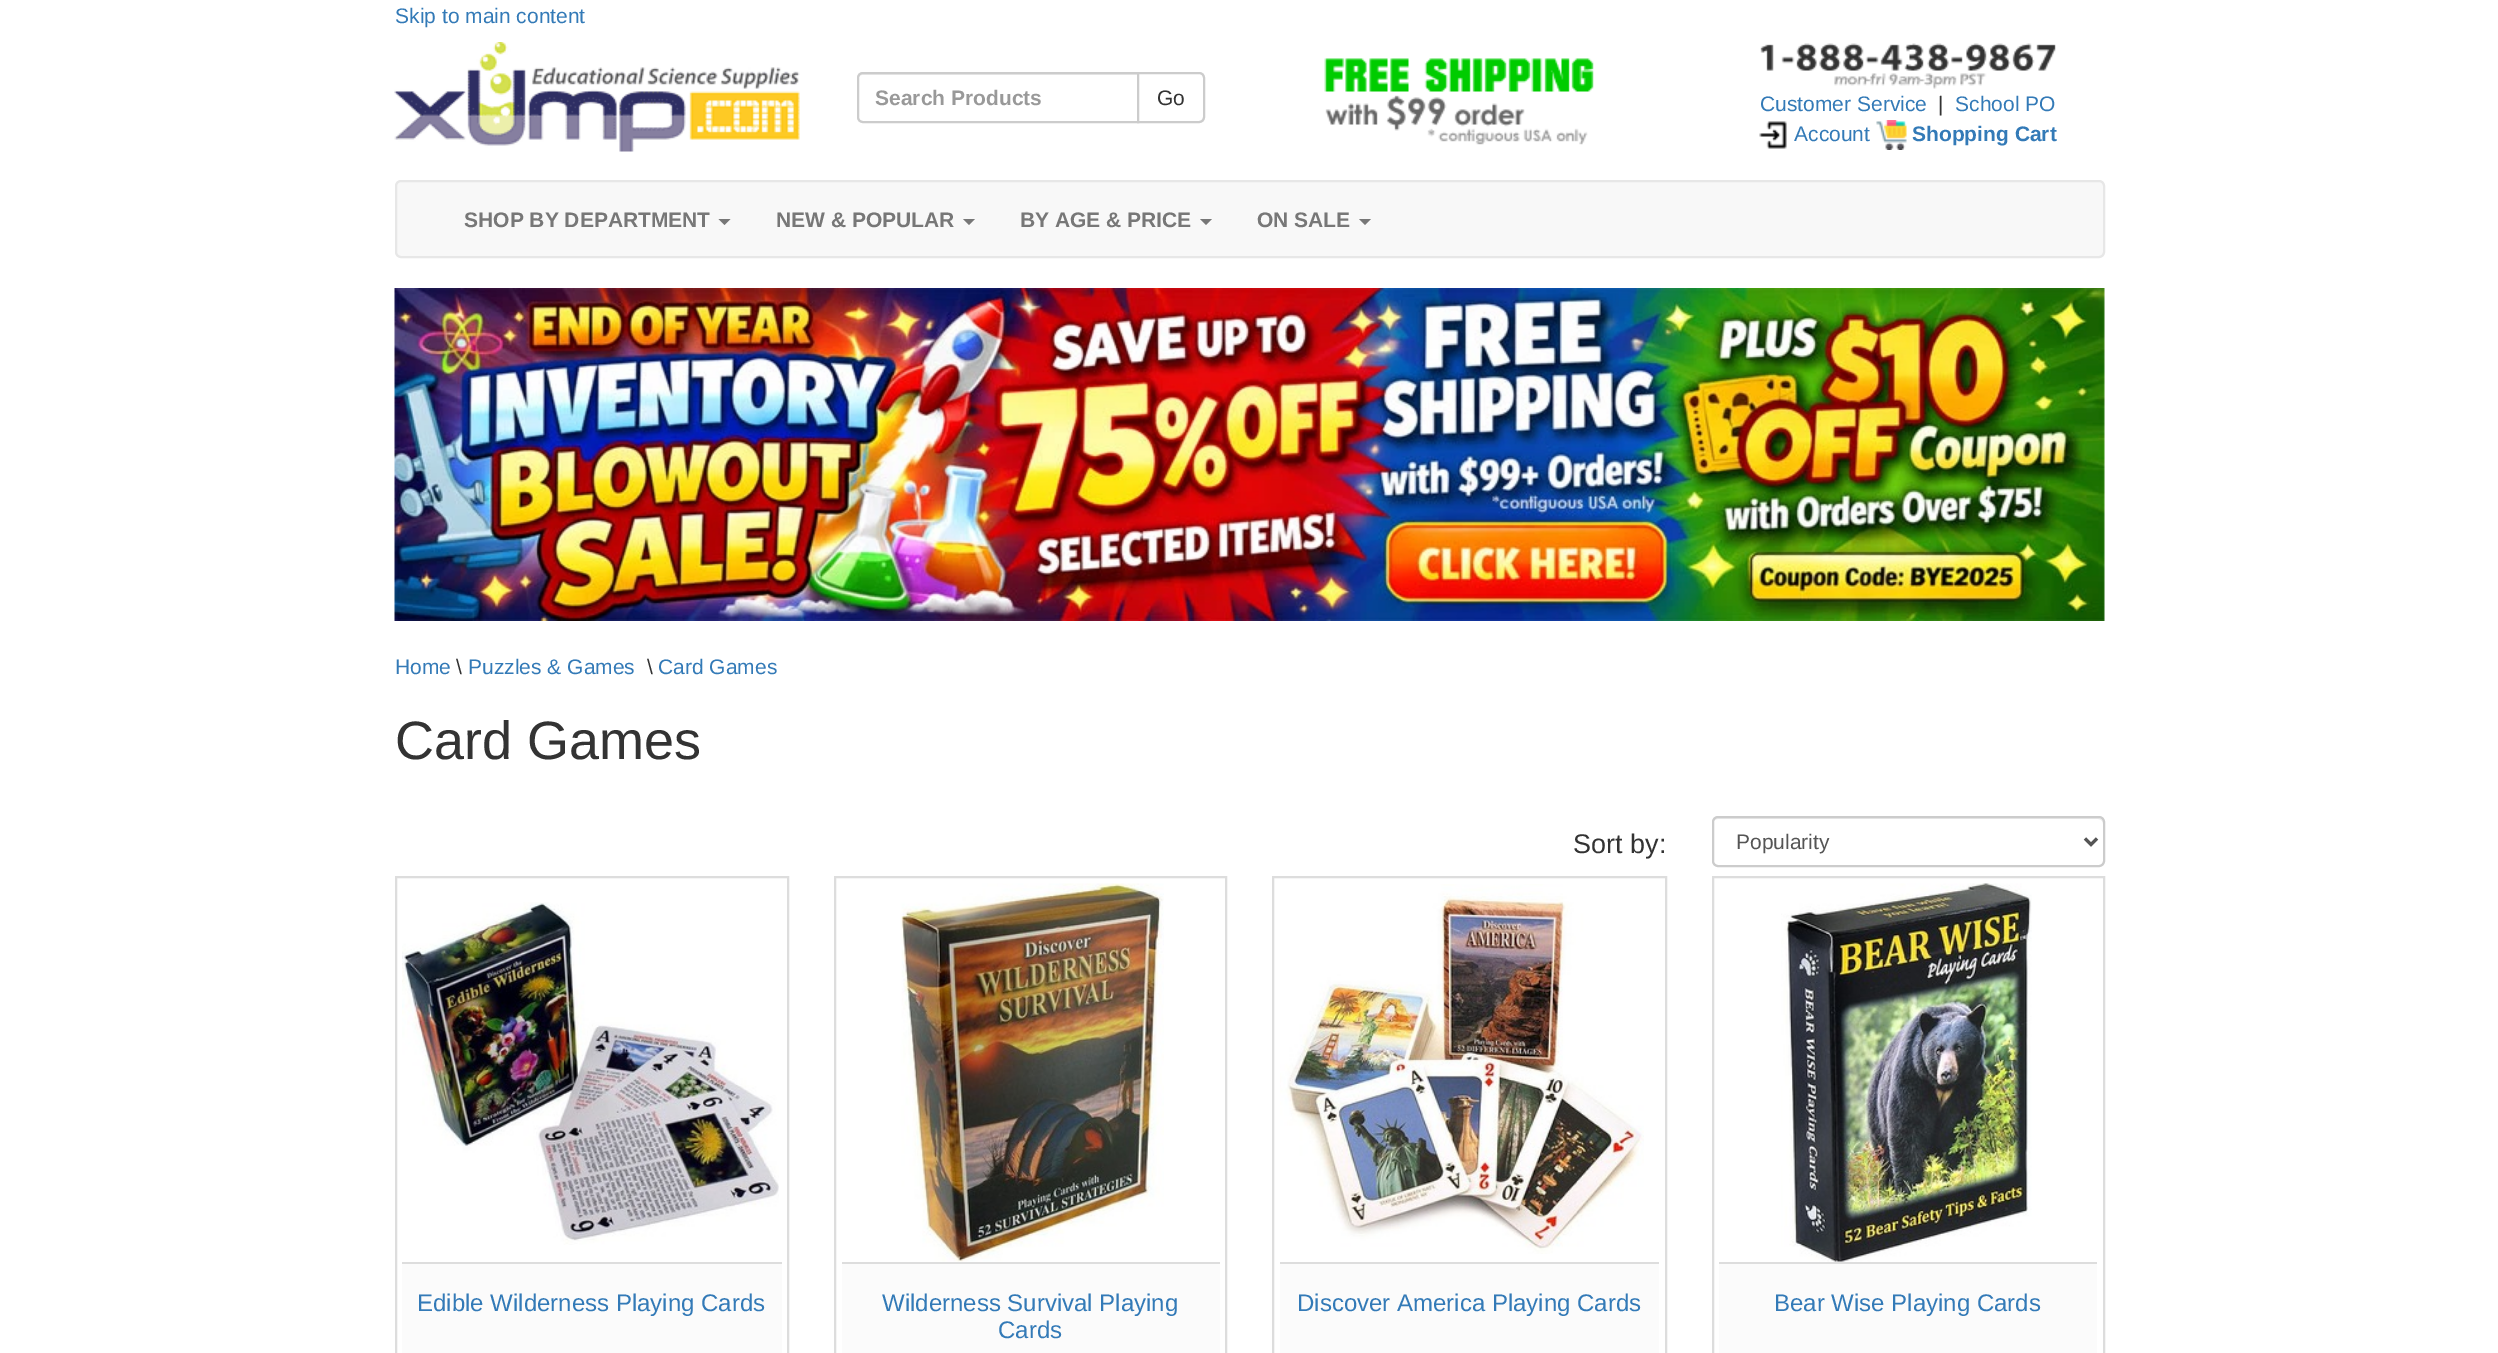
%!PS
<< /PageSize [2498 1353] >> setpagedevice
/mt/moveto load def
/li/lineto load def
/ct/curveto load def
/cp/closepath load def
/fl/fill load def
/st/stroke load def
/gs/gsave load def
/gr/grestore load def
/lw/setlinewidth load def
/co { dup -16 bitshift 255 div exch dup -8 bitshift 255 and 255 div exch 255 and 255 div setrgbcolor } def
/fn { [ exch dup neg 0 0 3 -1 roll 0 0 ] selectfont } def
/tx { co fn moveto show } def
/bx { co rectfill } def
/rr { 5 dict begin { /r /h /w /y /x } { exch def } forall
  x r add y moveto x w add y 2 copy h add r arct x w add y h add x 1 index r arct
  x y h add x y r arct x y 2 copy exch w add exch r arct closepath end } def
/im { 5 dict begin { /h /w /y /x /name } { exch def } forall
  gsave x y translate w h scale
  w h 8 [w 0 0 h 0 0] name (r) file false 3 colorimage grestore end } def
0 1353 translate 1 -1 scale
4 setmiterlimit
0 0 2498 1353 16#FFFFFF bx
(media/1.raw) 394 42 406 110 im
16#ECECEC co
862 75 mt 1137 75 li 1137 74 li 863 74 li 860 74 858 77 858 80 ct 858 77 860 75 862 75 ct cp fl
16#CCCCCC co
2 lw
863 73 mt 1138 73 li 1138 122 li 863 122 li 860 122 858 120 858 117 ct 858 78 li 858 75 860 73 863 73 ct cp st
16#FFFFFF co
1138 73 mt 1199 73 li 1202 73 1204 75 1204 78 ct 1204 117 li 1204 120 1202 122 1199 122 ct 1138 122 li cp gs fl gr
16#CCCCCC co
st
(media/2.raw) 1324 58 270 87 im
(media/3.raw) 1760 43 296 46 im
(media/4.raw) 1759 121 28 28 im
(media/5.raw) 1876 120 31 30 im
16#F8F8F8 co
396 181 1708 76 5 rr gs fl gr
16#E7E7E7 co
st
16#777777 co
718.5 219 mt 730.5 219 li 724.5 225 li cp fl
963 219 mt 975 219 li 969 225 li cp fl
1200 219 mt 1212 219 li 1206 225 li cp fl
1359 219 mt 1371 219 li 1365 225 li cp fl
(media/6.raw) 394 288 1711 333 im
16#ECECEC co
1718 819 mt 2098 819 li 2101 819 2103 821 2103 824 ct 2103 823 li 2103 820 2101 818 2098 818 ct 1718 818 li 1715 818 1713 820 1713 823 ct 1713 824 li 1713 821 1715 819 1718 819 ct cp fl
16#CCCCCC co
1713 817 391 49 5 rr st
16#555555 co
3 lw
2085 838.5 mt 2091 844.5 li 2097 838.5 li st
16#DDDDDD co
2 lw
396 877 392 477 rectstroke
(media/7.raw) 402 902 377 343 im
402 1264 380 89 16#FBFBFB bx
402 1262 380 2 16#DDDDDD bx
835 877 391 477 rectstroke
(media/8.raw) 900 883 264 379 im
842 1264 378 89 16#FBFBFB bx
842 1262 378 2 16#DDDDDD bx
1273 877 393 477 rectstroke
(media/9.raw) 1280 884 364 370 im
1280 1264 379 89 16#FBFBFB bx
1280 1262 379 2 16#DDDDDD bx
1713 877 391 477 rectstroke
(media/10.raw) 1781 883 251 379 im
1719 1264 378 89 16#FBFBFB bx
1719 1262 378 2 16#DDDDDD bx
(Skip to main content) 395 23 /LiberationSans-Regular 21 16#337AB7 tx
(Search Products) 875 105 /LiberationSans-Bold 21 16#999999 tx
(Go) 1157 105 /LiberationSans-Regular 21 16#333333 tx
(Customer Service) 1760 111 /LiberationSans-Regular 21 16#337AB7 tx
(|) 1938 111 /LiberationSans-Regular 21 16#333333 tx
(School PO) 1955 111 /LiberationSans-Regular 21 16#337AB7 tx
(Account) 1794 141 /LiberationSans-Regular 21 16#337AB7 tx
(Shopping Cart) 1912 141 /LiberationSans-Bold 21 16#337AB7 tx
(SHOP BY DEPARTMENT) 464 227 /LiberationSans-Bold 21 16#777777 tx
(NEW & POPULAR) 776 227 /LiberationSans-Bold 21 16#777777 tx
(BY AGE & PRICE) 1020 227 /LiberationSans-Bold 21 16#777777 tx
(ON SALE) 1257 227 /LiberationSans-Bold 21 16#777777 tx
(Home) 395 674 /LiberationSans-Regular 21 16#337AB7 tx
(\\) 456 674 /LiberationSans-Regular 21 16#333333 tx
(Puzzles & Games) 468 674 /LiberationSans-Regular 21 16#337AB7 tx
(\\) 647 674 /LiberationSans-Regular 21 16#333333 tx
(Card Games) 658 674 /LiberationSans-Regular 21 16#337AB7 tx
(Card Games) 395 759 /LiberationSans-Regular 54 16#333333 tx
(Sort by:) 1573 853 /LiberationSans-Regular 27 16#333333 tx
(Popularity) 1736 849 /LiberationSans-Regular 21 16#555555 tx
(Edible Wilderness Playing Cards) 417 1311 /LiberationSans-Regular 24 16#337AB7 tx
(Wilderness Survival Playing) 882 1311 /LiberationSans-Regular 24 16#337AB7 tx
(Cards) 998 1338 /LiberationSans-Regular 24 16#337AB7 tx
(Discover America Playing Cards) 1297 1311 /LiberationSans-Regular 24 16#337AB7 tx
(Bear Wise Playing Cards) 1774 1311 /LiberationSans-Regular 24 16#337AB7 tx
showpage
